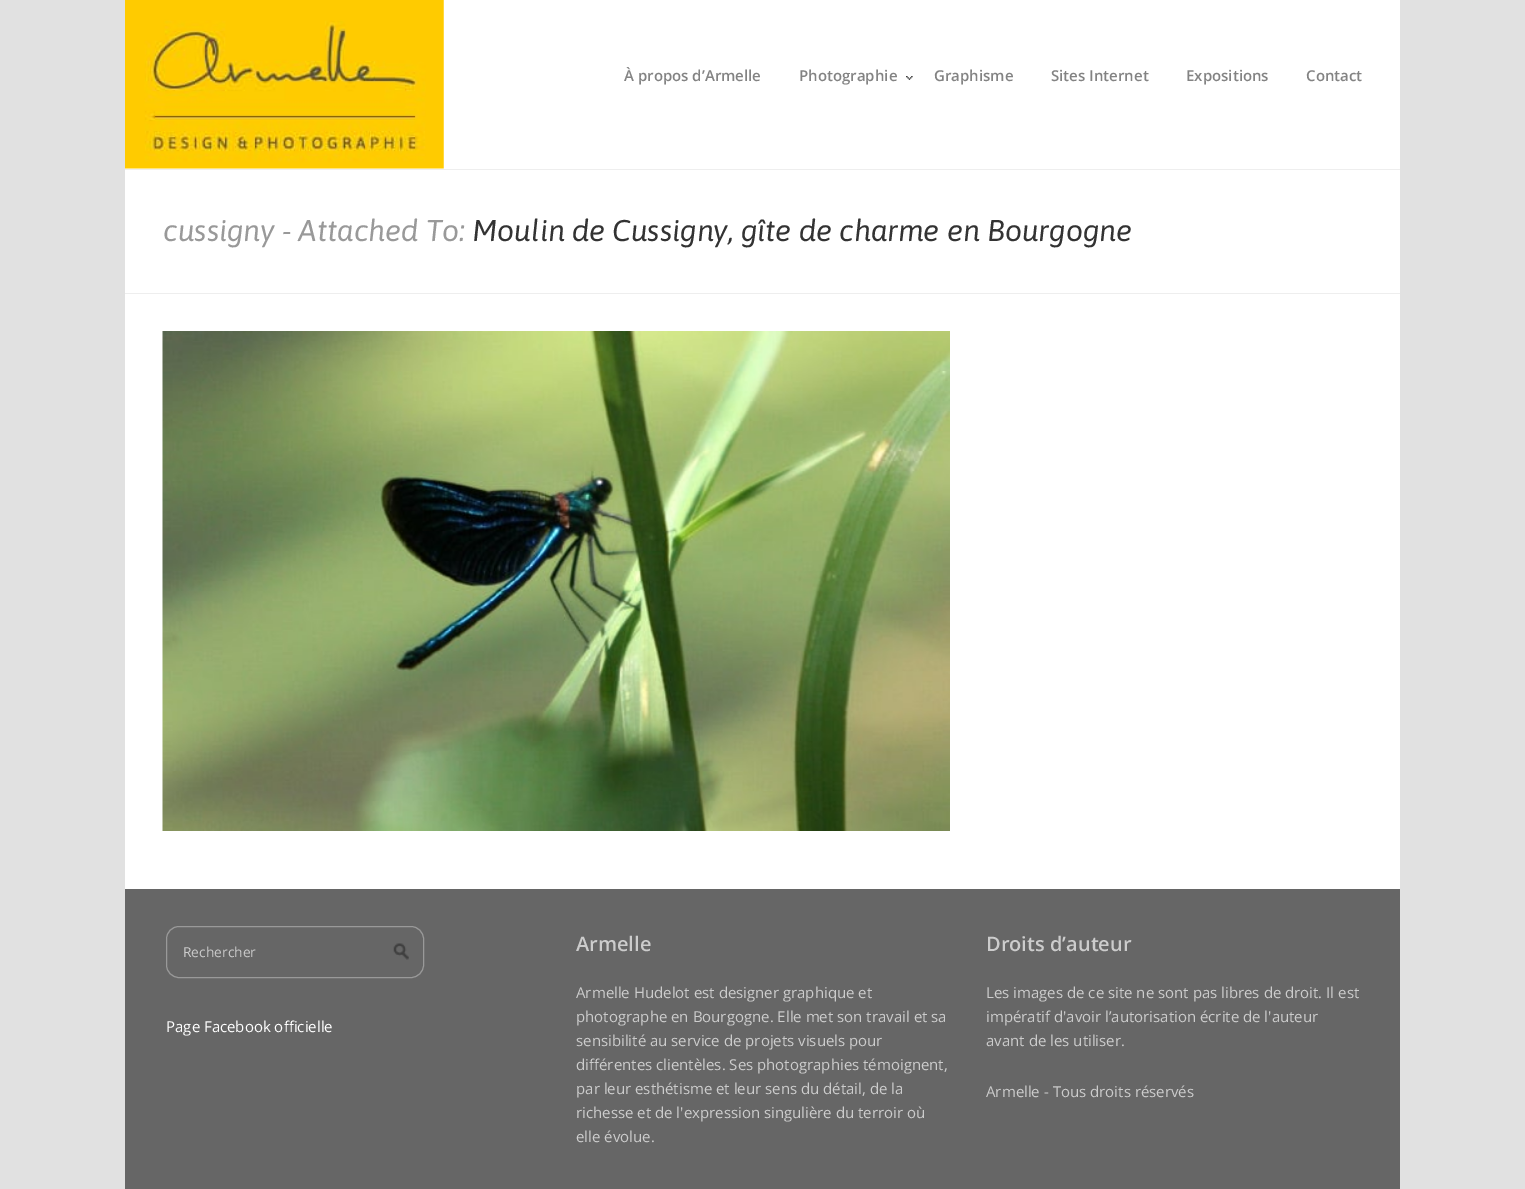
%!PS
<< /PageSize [1525 1189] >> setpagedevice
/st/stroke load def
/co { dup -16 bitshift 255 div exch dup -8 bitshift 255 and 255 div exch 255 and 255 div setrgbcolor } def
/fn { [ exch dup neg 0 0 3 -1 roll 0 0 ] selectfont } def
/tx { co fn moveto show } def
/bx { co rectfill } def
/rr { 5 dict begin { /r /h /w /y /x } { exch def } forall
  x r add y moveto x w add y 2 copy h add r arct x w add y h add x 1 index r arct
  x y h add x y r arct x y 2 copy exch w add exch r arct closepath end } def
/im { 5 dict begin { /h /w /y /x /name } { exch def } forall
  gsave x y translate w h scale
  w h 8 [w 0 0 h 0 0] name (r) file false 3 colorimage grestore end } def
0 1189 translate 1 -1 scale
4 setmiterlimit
0 0 1525 1189 16#E1E1E1 bx
125 0 1275 889 16#FFFFFF bx
(media/1.raw) 125 0 319 169 im
(media/2.raw) 906 76 7 4 im
125 169 1275 1 16#EEEEEE bx
125 293 1275 1 16#EEEEEE bx
(media/3.raw) 162 331 788 500 im
125 889 1275 300 16#666666 bx
(media/4.raw) 393 943 16 17 im
16#999999 co
166.5 926.5 257 51 12.5 rr st
(À propos d’Armelle) 624 81 /OpenSans-SemiBold 15 16#838383 tx
(Photographie) 799 81 /OpenSans-SemiBold 15 16#838383 tx
(Graphisme) 934 81 /OpenSans-SemiBold 15 16#838383 tx
(Sites Internet) 1051 81 /OpenSans-SemiBold 15 16#838383 tx
(Expositions) 1186 81 /OpenSans-SemiBold 15 16#838383 tx
(Contact) 1306 81 /OpenSans-SemiBold 15 16#838383 tx
(cussigny - Attached To:) 163 241 /Asap-Italic 30 16#999999 tx
(Moulin de Cussigny, gîte de charme en Bourgogne) 472 241 /Asap-Italic 30 16#333333 tx
(Rechercher) 183 957 /OpenSans-Regular 13.75 16#CCCCCC tx
(Page Facebook officielle) 166 1032 /OpenSans-Regular 15 16#FFFFFF tx
(Armelle) 576 951 /OpenSans-SemiBold 20 16#CCCCCC tx
(Armelle Hudelot est designer graphique et) 576 998 /OpenSans-Regular 15 16#CCCCCC tx
(photographe en Bourgogne. Elle met son travail et sa) 576 1022 /OpenSans-Regular 15 16#CCCCCC tx
(sensibilité au service de projets visuels pour) 576 1046 /OpenSans-Regular 15 16#CCCCCC tx
(différentes clientèles. Ses photographies témoignent,) 576 1070 /OpenSans-Regular 15 16#CCCCCC tx
(par leur esthétisme et leur sens du détail, de la) 576 1094 /OpenSans-Regular 15 16#CCCCCC tx
(richesse et de l'expression singulière du terroir où) 576 1118 /OpenSans-Regular 15 16#CCCCCC tx
(elle évolue.) 576 1142 /OpenSans-Regular 15 16#CCCCCC tx
(Droits d’auteur) 986 951 /OpenSans-SemiBold 20 16#CCCCCC tx
(Les images de ce site ne sont pas libres de droit. Il est) 986 998 /OpenSans-Regular 15 16#CCCCCC tx
(impératif d'avoir l’autorisation écrite de l'auteur) 986 1022 /OpenSans-Regular 15 16#CCCCCC tx
(avant de les utiliser.) 986 1046 /OpenSans-Regular 15 16#CCCCCC tx
(Armelle - Tous droits réservés) 986 1097 /OpenSans-Regular 15 16#CCCCCC tx
showpage
